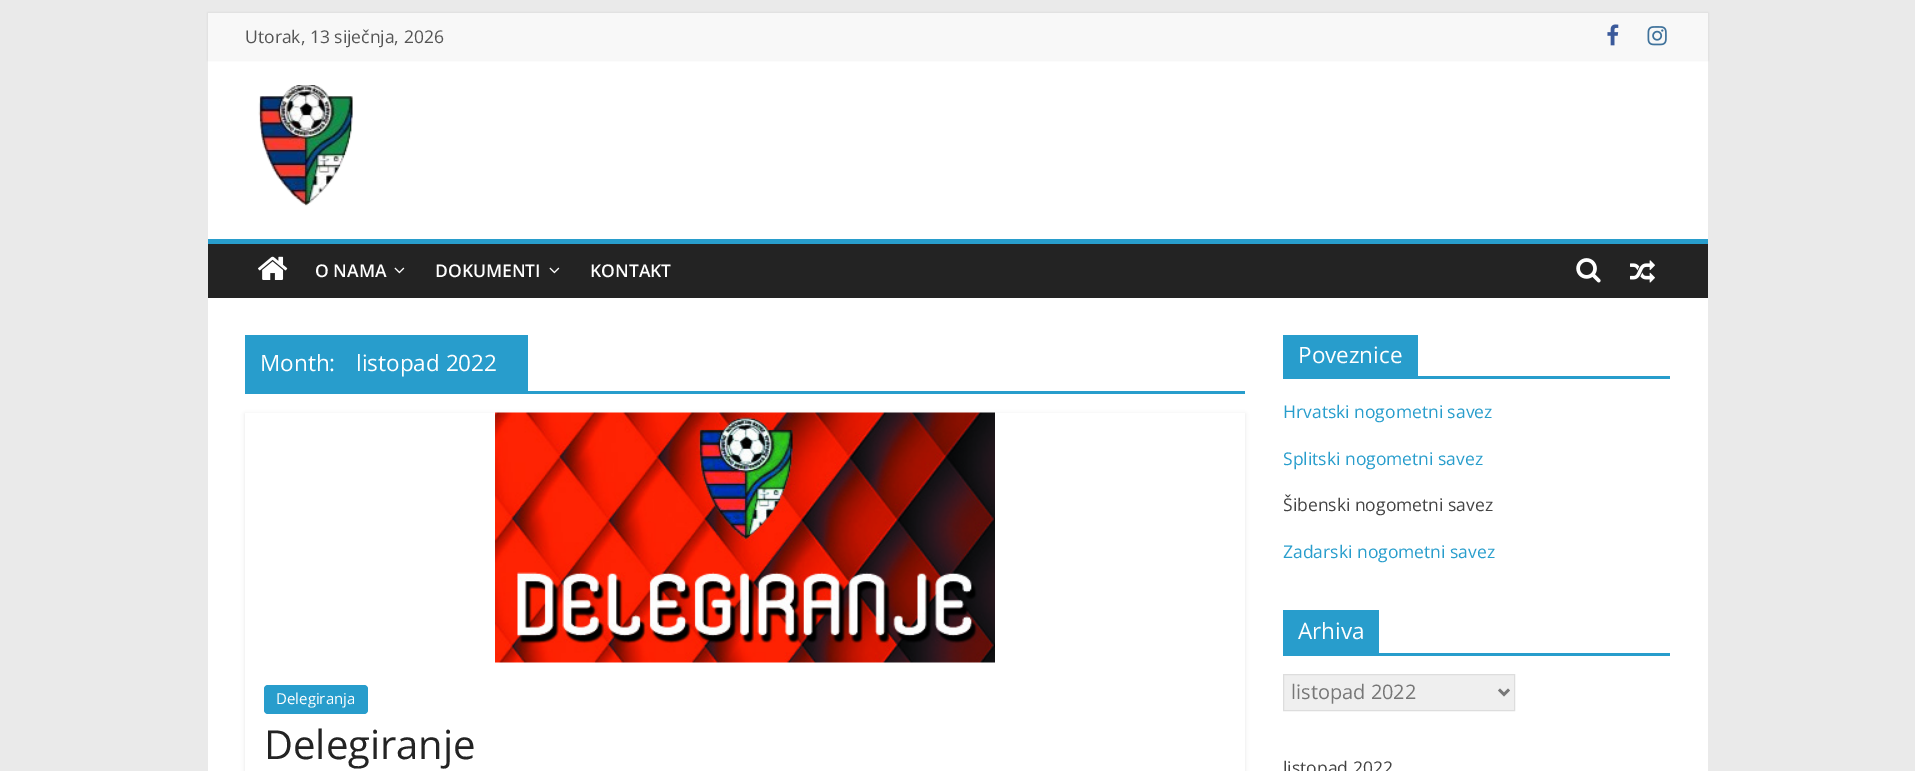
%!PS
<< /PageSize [1915 771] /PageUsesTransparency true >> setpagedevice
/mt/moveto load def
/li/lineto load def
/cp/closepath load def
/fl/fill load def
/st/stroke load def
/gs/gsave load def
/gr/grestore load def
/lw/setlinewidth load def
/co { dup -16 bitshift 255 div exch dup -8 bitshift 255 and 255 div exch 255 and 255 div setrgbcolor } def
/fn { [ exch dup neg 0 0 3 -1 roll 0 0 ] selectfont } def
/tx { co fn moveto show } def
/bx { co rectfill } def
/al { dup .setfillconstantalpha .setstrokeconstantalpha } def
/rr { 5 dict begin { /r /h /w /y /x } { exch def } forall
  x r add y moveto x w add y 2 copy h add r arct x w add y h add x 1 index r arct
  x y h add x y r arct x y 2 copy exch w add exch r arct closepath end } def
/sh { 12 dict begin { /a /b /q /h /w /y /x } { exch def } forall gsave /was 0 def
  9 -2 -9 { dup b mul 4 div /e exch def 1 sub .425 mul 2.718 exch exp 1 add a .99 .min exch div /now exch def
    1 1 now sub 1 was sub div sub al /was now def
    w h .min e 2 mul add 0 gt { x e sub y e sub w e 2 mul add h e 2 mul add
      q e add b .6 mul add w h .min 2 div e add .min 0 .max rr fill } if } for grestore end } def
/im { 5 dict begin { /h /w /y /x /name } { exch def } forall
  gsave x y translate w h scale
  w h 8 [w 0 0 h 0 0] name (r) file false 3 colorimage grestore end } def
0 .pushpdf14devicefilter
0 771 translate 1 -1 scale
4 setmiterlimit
0 0 1915 771 16#EAEAEA bx
208 60 1500 179 16#FFFFFF bx
16#000000 co
208 13 1500 47 0 1 .1 sh
208 13 1500 47 16#F8F8F8 bx
(media/1.raw) 1607 24 12 22 im
(media/2.raw) 1647 26 20 20 im
(media/3.raw) 258 85 95 121 im
208 244 1500 54 16#232323 bx
208 239 1500 5 16#289DCC bx
(media/4.raw) 258 256 30 24 im
(media/5.raw) 394 267 11 7 im
(media/5.raw) 549 267 11 7 im
(media/6.raw) 1576 258 25 25 im
(media/7.raw) 1630 260 25 23 im
208 298 1500 473 16#FFFFFF bx
245 391 1000 3 16#289DCC bx
245 335 283 56 16#289DCC bx
gs
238 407 mt 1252 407 li 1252 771 li 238 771 li cp 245 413 mt 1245 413 li 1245 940 li 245 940 li cp eoclip newpath
16#000000 co
245 414 1000 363 0 2 .1 sh
gr
(media/8.raw) 495 412 500 251 im
264 685 104 29 4 rr fl
1283 376 387 3 16#289DCC bx
1283 335 135 41 16#289DCC bx
1283 653 387 3 16#289DCC bx
1283 610 96 43 16#289DCC bx
16#EFEFEF co
1283.5 674.5 mt 1514.5 674.5 li 1514.5 710.5 li 1283.5 710.5 li cp gs fl gr
16#DDDDDD co
st
16#777777 co
2.5 lw
1499 689.5 mt 1504 694.5 li 1509 689.5 li st
(Utorak, 13 siječnja, 2026) 245 43 /OpenSans-Regular 17.5 16#555555 tx
(O NAMA) 315 277 /OpenSans-SemiBold 17.5 16#FFFFFF tx
(DOKUMENTI) 435 277 /OpenSans-SemiBold 17.5 16#FFFFFF tx
(KONTAKT) 590 277 /OpenSans-SemiBold 17.5 16#FFFFFF tx
(Month:) 260 371 /OpenSans-Regular 22.5 16#FFFFFF tx
(listopad 2022) 356 371 /OpenSans-Regular 22.5 16#FFFFFF tx
(Delegiranja) 276 704 /OpenSans-Regular 15 16#FFFFFF tx
(Delegiranje) 264 759 /OpenSans-Regular 40 16#232323 tx
(Poveznice) 1298 363 /OpenSans-Regular 22.5 16#FFFFFF tx
(Hrvatski nogometni savez) 1283 418 /OpenSans-Regular 17.5 16#289DCC tx
(Splitski nogometni savez) 1283 465 /OpenSans-Regular 17.5 16#289DCC tx
(Šibenski nogometni savez) 1283 511 /OpenSans-Regular 17.5 16#444444 tx
(Zadarski nogometni savez) 1283 558 /OpenSans-Regular 17.5 16#289DCC tx
(Arhiva) 1298 639 /OpenSans-Regular 22.5 16#FFFFFF tx
(listopad 2022) 1291 699 /OpenSans-Regular 20 16#777777 tx
(listopad 2022) 1283 774 /OpenSans-Regular 17.5 16#444444 tx
.poppdf14devicefilter showpage
